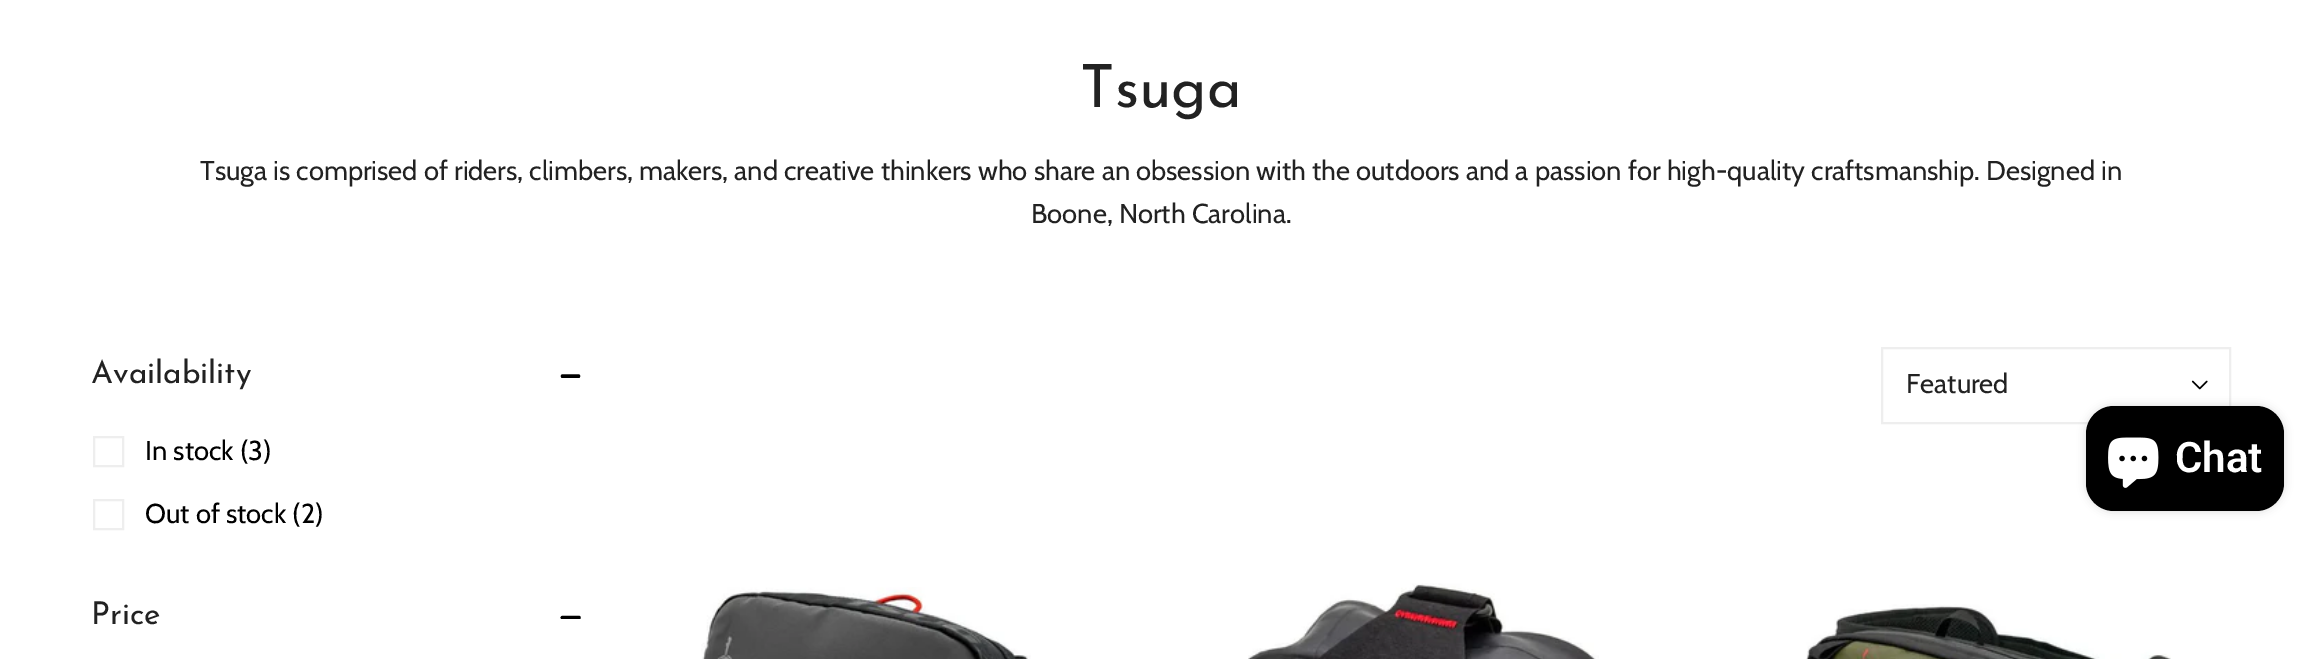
%!PS
<< /PageSize [2321 659] /PageUsesTransparency true >> setpagedevice
/mt/moveto load def
/li/lineto load def
/cp/closepath load def
/fl/fill load def
/st/stroke load def
/gs/gsave load def
/gr/grestore load def
/lw/setlinewidth load def
/co { dup -16 bitshift 255 div exch dup -8 bitshift 255 and 255 div exch 255 and 255 div setrgbcolor } def
/fn { [ exch dup neg 0 0 3 -1 roll 0 0 ] selectfont } def
/tx { co fn moveto show } def
/bx { co rectfill } def
/al { dup .setfillconstantalpha .setstrokeconstantalpha } def
/rr { 5 dict begin { /r /h /w /y /x } { exch def } forall
  x r add y moveto x w add y 2 copy h add r arct x w add y h add x 1 index r arct
  x y h add x y r arct x y 2 copy exch w add exch r arct closepath end } def
/sh { 12 dict begin { /a /b /q /h /w /y /x } { exch def } forall gsave /was 0 def
  9 -2 -9 { dup b mul 4 div /e exch def 1 sub .425 mul 2.718 exch exp 1 add a .99 .min exch div /now exch def
    1 1 now sub 1 was sub div sub al /was now def
    w h .min e 2 mul add 0 gt { x e sub y e sub w e 2 mul add h e 2 mul add
      q e add b .6 mul add w h .min 2 div e add .min 0 .max rr fill } if } for grestore end } def
/im { 5 dict begin { /h /w /y /x /name } { exch def } forall
  gsave x y translate w h scale
  w h 8 [w 0 0 h 0 0] name (r) file false 3 colorimage grestore end } def
0 .pushpdf14devicefilter
0 659 translate 1 -1 scale
4 setmiterlimit
0 0 2321 659 16#FFFFFF bx
gs
560 378 mt 560 374.5 li 581 374.5 li 581 378 li cp clip newpath
16#000000 co
3.5 lw
1 setlinecap
1 setlinejoin
562.5 376 mt 578.5 376 li st
gr
16#000000 co
2.6 lw
1 setlinecap
1 setlinejoin
578.5 376.5 mt 562.5 376.5 li st
16#EEEEEE co
2 lw
0 setlinecap
0 setlinejoin
94 437 29 29 rectstroke
94 500 29 29 rectstroke
gs
560 619 mt 560 615.5 li 581 615.5 li 581 619 li cp clip newpath
16#000000 co
3.5 lw
1 setlinecap
1 setlinejoin
562.5 617.5 mt 579 617.5 li st
gr
16#000000 co
2.6 lw
1 setlinecap
1 setlinejoin
578.5 617.5 mt 562 617.5 li st
(media/1.raw) 2191 380 17 10 im
16#EEEEEE co
2 lw
0 setlinecap
0 setlinejoin
1882 348 348 75 rectstroke
(media/2.raw) 701 587 330 72 im
(media/3.raw) 1248 583 351 76 im
(media/4.raw) 1806 604 365 55 im
16#000000 co
2086 406 198 105 28 4.5 .15 sh
2086 406 198 105 28 rr fl
(media/5.raw) 2108 437 51 51 im
(Tsuga) 1080 107 /JosefinSans-Regular 59.5 16#222222 tx
(Tsuga is comprised of riders, climbers, makers, and creative thinkers who share an obsession with the outdoors and a passion for high-quality craftsmanship. Designed in) 200 180 /Cabin-Regular 27.3 16#222222 tx
(Boone, North Carolina.) 1031 223 /Cabin-Regular 27.3 16#222222 tx
(Availability) 91 383 /JosefinSans-Regular 31.5 16#222222 tx
(In stock \(3\)) 145 460 /Cabin-Regular 27.3 16#000000 tx
(Out of stock \(2\)) 145 523 /Cabin-Regular 27.3 16#000000 tx
(Price) 91 624 /JosefinSans-Regular 31.5 16#222222 tx
(Featured) 1906 393 /Cabin-Regular 27.3 16#222222 tx
(Chat) 2175 472 /Roboto-SemiBold 42 16#FFFFFF tx
.poppdf14devicefilter showpage
